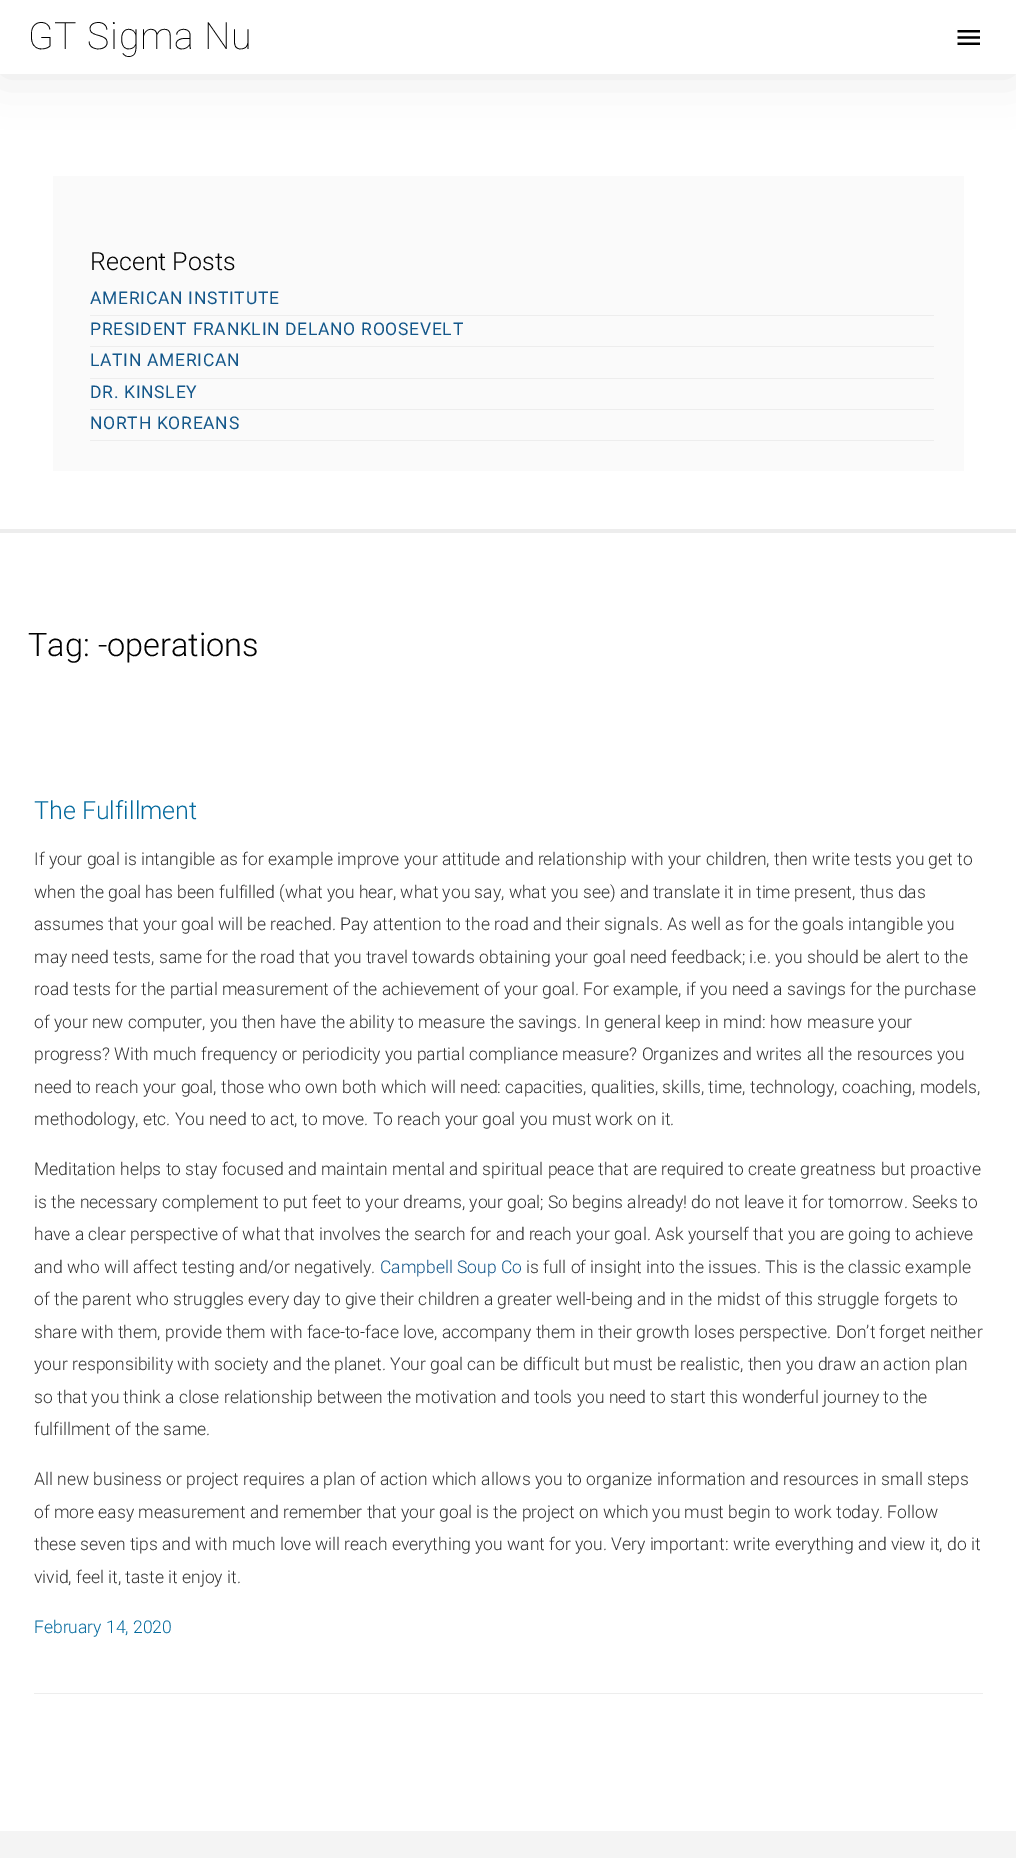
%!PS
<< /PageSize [1016 1858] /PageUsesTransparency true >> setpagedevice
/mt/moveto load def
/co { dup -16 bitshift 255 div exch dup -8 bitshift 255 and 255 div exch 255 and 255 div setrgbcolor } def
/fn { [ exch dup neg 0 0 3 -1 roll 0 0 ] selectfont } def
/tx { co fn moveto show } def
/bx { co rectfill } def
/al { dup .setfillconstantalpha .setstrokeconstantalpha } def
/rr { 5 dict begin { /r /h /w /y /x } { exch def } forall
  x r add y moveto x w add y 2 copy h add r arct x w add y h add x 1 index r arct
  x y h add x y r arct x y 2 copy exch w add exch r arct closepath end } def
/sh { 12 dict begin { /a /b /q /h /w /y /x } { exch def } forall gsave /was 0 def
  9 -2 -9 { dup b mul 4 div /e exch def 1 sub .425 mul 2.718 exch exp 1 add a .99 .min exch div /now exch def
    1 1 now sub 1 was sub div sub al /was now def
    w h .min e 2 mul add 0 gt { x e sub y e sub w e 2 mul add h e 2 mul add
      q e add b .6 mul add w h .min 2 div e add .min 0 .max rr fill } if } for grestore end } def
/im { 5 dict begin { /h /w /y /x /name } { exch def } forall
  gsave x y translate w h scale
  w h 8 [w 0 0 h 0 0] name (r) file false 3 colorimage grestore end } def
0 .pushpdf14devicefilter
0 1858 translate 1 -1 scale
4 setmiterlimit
0 0 1016 1858 16#FFFFFF bx
16#000000 co
0 0 1016 74 0 25 .1 sh
0 0 1016 74 16#FFFFFF bx
(media/1.raw) 957 30 23 15 im
0 529 1016 4 16#EDEDED bx
53 176 911 295 16#FAFAFA bx
90 315 844 1 16#EDEDED bx
90 346 844 1 16#EDEDED bx
90 378 844 1 16#EDEDED bx
90 409 844 1 16#EDEDED bx
90 440 844 1 16#EDEDED bx
34 1693 949 1 16#EDEDED bx
0 1831 1016 27 16#F4F4F4 bx
/Roboto-Thin 37.5 fn
16#000000 co
28 49 mt .7 0 (GT Sigma Nu) ashow
(Recent Posts) 90 270 /Roboto-Light 25 16#000000 tx
/Roboto-Regular 17.5 fn
16#14578A co
90 304 mt .7 0 (AMERICAN INSTITUTE) ashow
90 335 mt .7 0 (PRESIDENT FRANKLIN DELANO ROOSEVELT) ashow
90 366 mt .7 0 (LATIN AMERICAN) ashow
90 398 mt .7 0 (DR. KINSLEY) ashow
90 429 mt .7 0 (NORTH KOREANS) ashow
(Tag: -operations) 28 656 /Roboto-Light 32.5 16#000000 tx
(The Fulfillment) 34 819 /Roboto-Light 25 16#03699D tx
(If your goal is intangible as for example improve your attitude and relationship with your children, then write tests you get to) 34 865 /Roboto-Light 17.5 16#333333 tx
(when the goal has been fulfilled \(what you hear, what you say, what you see\) and translate it in time present, thus das) 34 898 /Roboto-Light 17.5 16#333333 tx
(assumes that your goal will be reached. Pay attention to the road and their signals. As well as for the goals intangible you) 34 930 /Roboto-Light 17.5 16#333333 tx
(may need tests, same for the road that you travel towards obtaining your goal need feedback; i.e. you should be alert to the) 34 963 /Roboto-Light 17.5 16#333333 tx
(road tests for the partial measurement of the achievement of your goal. For example, if you need a savings for the purchase) 34 995 /Roboto-Light 17.5 16#333333 tx
(of your new computer, you then have the ability to measure the savings. In general keep in mind: how measure your) 34 1028 /Roboto-Light 17.5 16#333333 tx
(progress? With much frequency or periodicity you partial compliance measure? Organizes and writes all the resources you) 34 1060 /Roboto-Light 17.5 16#333333 tx
(need to reach your goal, those who own both which will need: capacities, qualities, skills, time, technology, coaching, models,) 34 1093 /Roboto-Light 17.5 16#333333 tx
(methodology, etc. You need to act, to move. To reach your goal you must work on it.) 34 1125 /Roboto-Light 17.5 16#333333 tx
(Meditation helps to stay focused and maintain mental and spiritual peace that are required to create greatness but proactive) 34 1175 /Roboto-Light 17.5 16#333333 tx
(is the necessary complement to put feet to your dreams, your goal; So begins already! do not leave it for tomorrow. Seeks to) 34 1208 /Roboto-Light 17.5 16#333333 tx
(have a clear perspective of what that involves the search for and reach your goal. Ask yourself that you are going to achieve) 34 1240 /Roboto-Light 17.5 16#333333 tx
(and who will affect testing and/or negatively.) 34 1273 /Roboto-Light 17.5 16#333333 tx
(Campbell Soup Co) 380 1273 /Roboto-Light 17.5 16#14578A tx
(is full of insight into the issues. This is the classic example) 526 1273 /Roboto-Light 17.5 16#333333 tx
(of the parent who struggles every day to give their children a greater well-being and in the midst of this struggle forgets to) 34 1305 /Roboto-Light 17.5 16#333333 tx
(share with them, provide them with face-to-face love, accompany them in their growth loses perspective. Don’t forget neither) 34 1338 /Roboto-Light 17.5 16#333333 tx
(your responsibility with society and the planet. Your goal can be difficult but must be realistic, then you draw an action plan) 34 1370 /Roboto-Light 17.5 16#333333 tx
(so that you think a close relationship between the motivation and tools you need to start this wonderful journey to the) 34 1403 /Roboto-Light 17.5 16#333333 tx
(fulfillment of the same.) 34 1435 /Roboto-Light 17.5 16#333333 tx
(All new business or project requires a plan of action which allows you to organize information and resources in small steps) 34 1485 /Roboto-Light 17.5 16#333333 tx
(of more easy measurement and remember that your goal is the project on which you must begin to work today. Follow) 34 1518 /Roboto-Light 17.5 16#333333 tx
(these seven tips and with much love will reach everything you want for you. Very important: write everything and view it, do it) 34 1550 /Roboto-Light 17.5 16#333333 tx
(vivid, feel it, taste it enjoy it.) 34 1583 /Roboto-Light 17.5 16#333333 tx
(February 14, 2020) 34 1633 /Roboto-Light 17.5 16#03699D tx
.poppdf14devicefilter showpage
